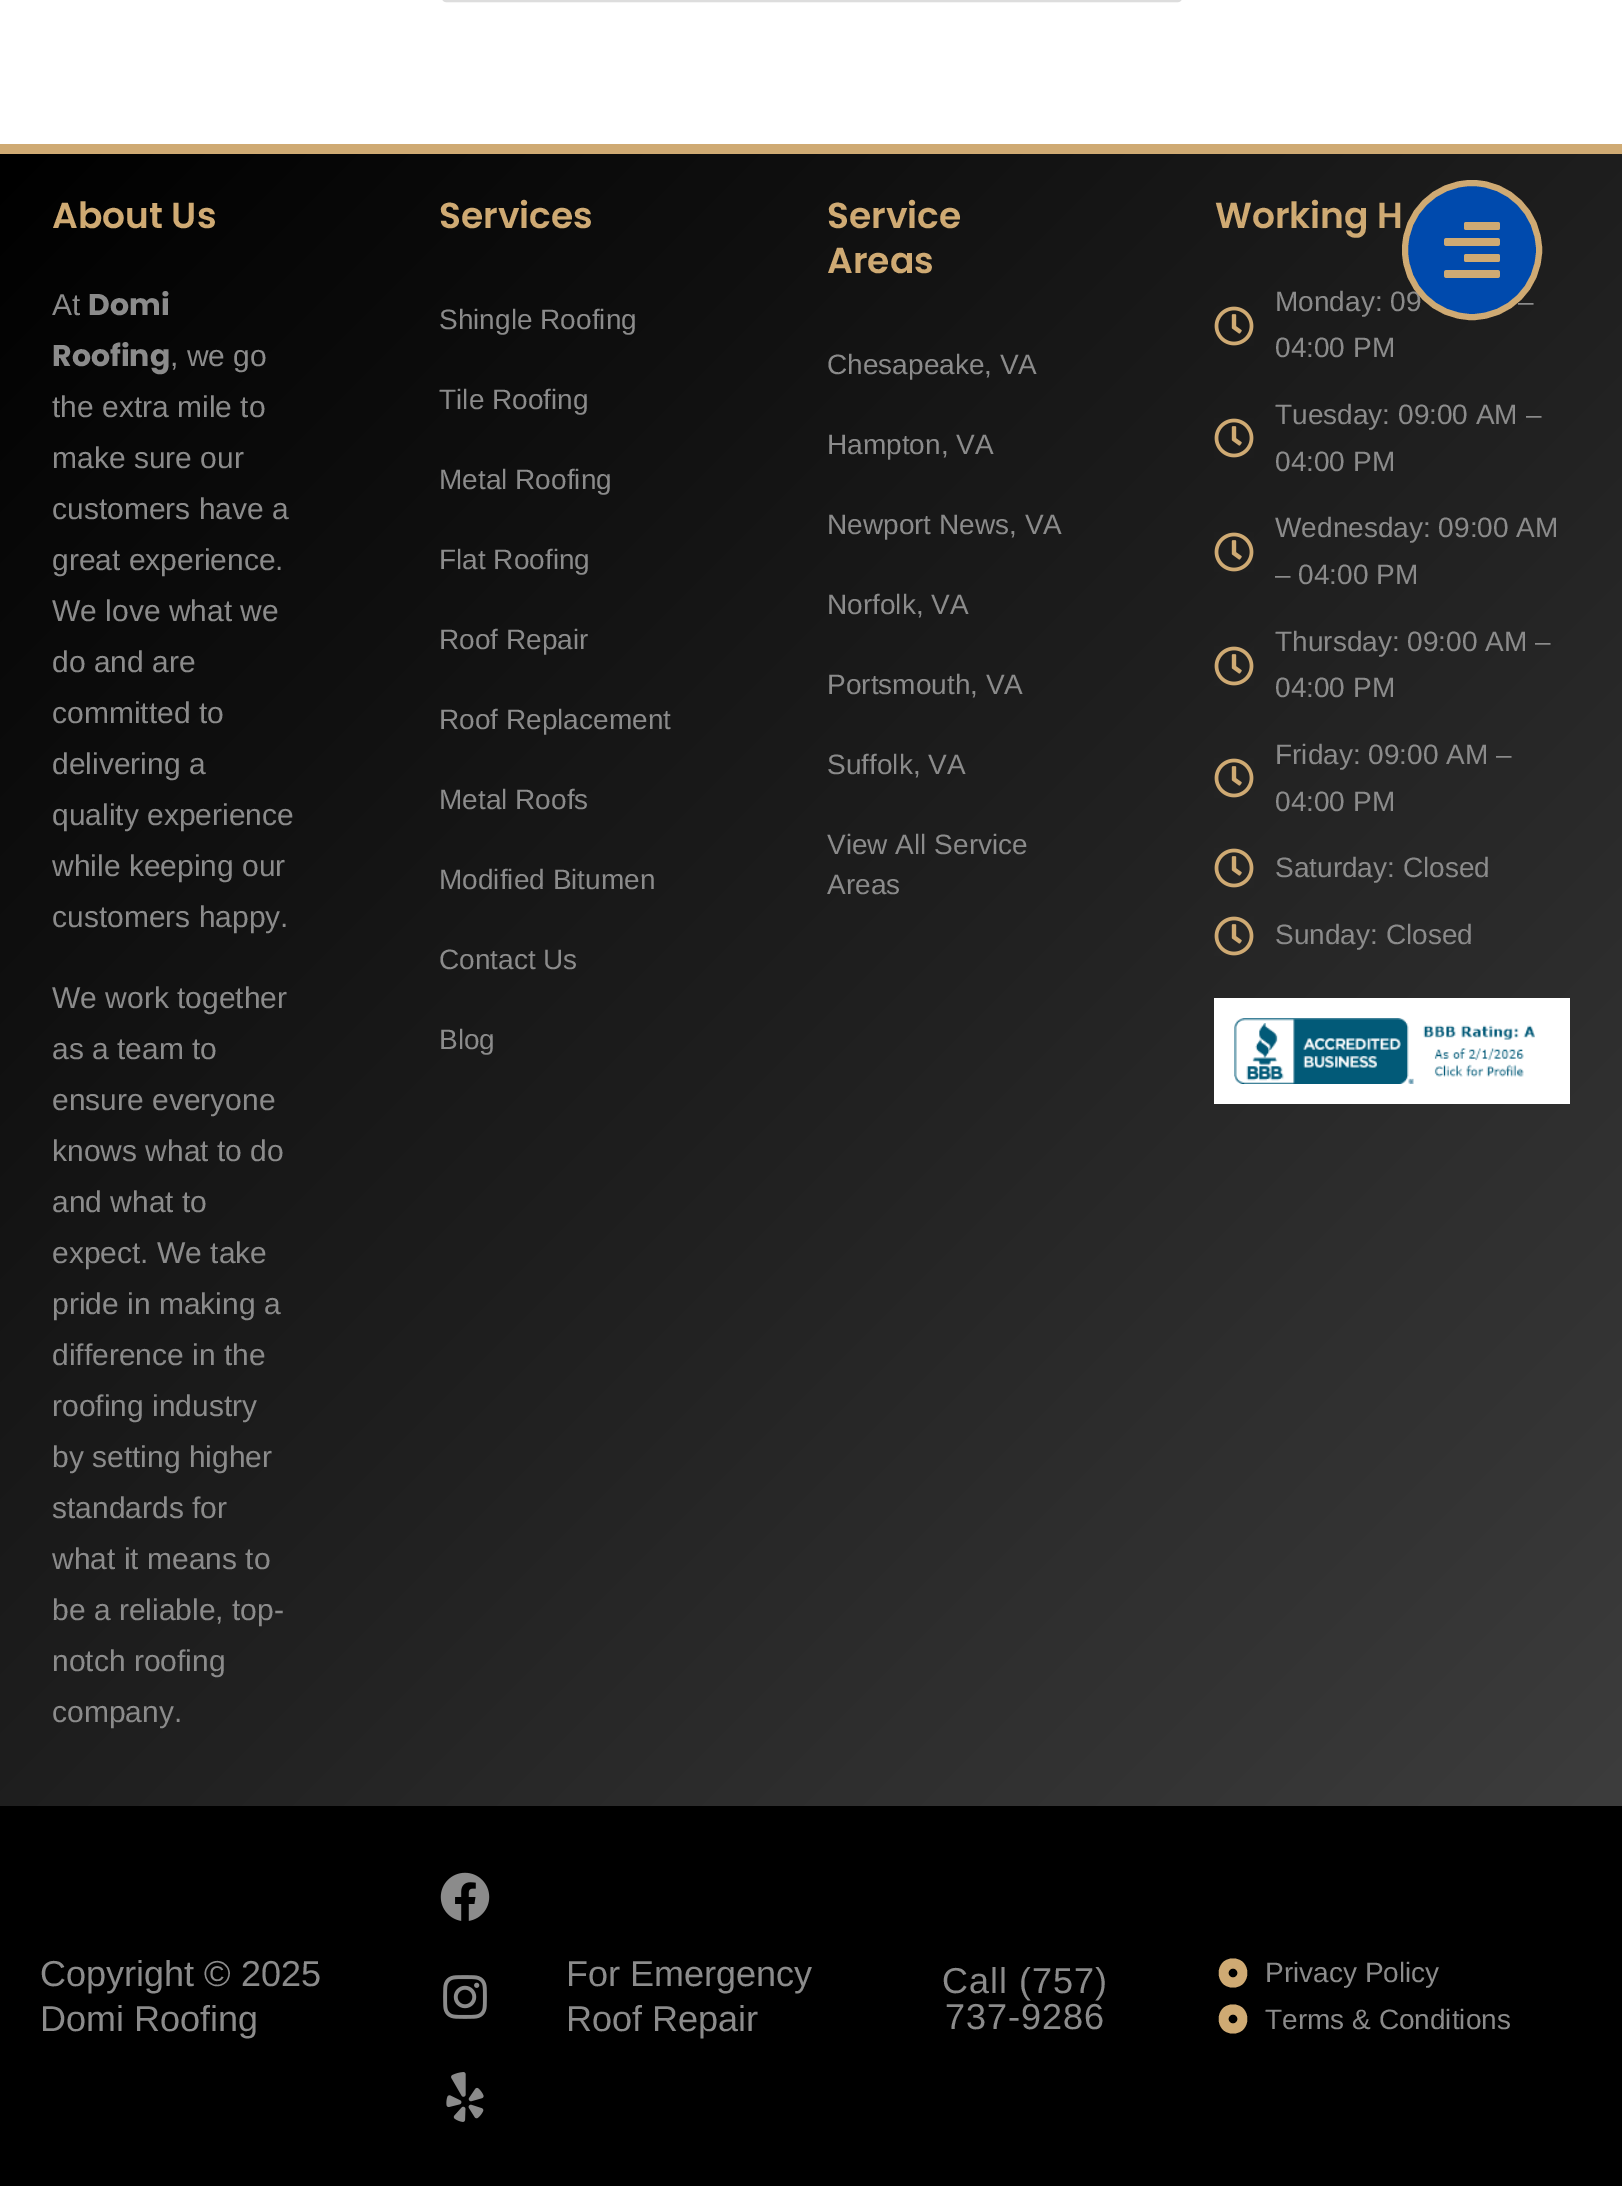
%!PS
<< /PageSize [1622 2186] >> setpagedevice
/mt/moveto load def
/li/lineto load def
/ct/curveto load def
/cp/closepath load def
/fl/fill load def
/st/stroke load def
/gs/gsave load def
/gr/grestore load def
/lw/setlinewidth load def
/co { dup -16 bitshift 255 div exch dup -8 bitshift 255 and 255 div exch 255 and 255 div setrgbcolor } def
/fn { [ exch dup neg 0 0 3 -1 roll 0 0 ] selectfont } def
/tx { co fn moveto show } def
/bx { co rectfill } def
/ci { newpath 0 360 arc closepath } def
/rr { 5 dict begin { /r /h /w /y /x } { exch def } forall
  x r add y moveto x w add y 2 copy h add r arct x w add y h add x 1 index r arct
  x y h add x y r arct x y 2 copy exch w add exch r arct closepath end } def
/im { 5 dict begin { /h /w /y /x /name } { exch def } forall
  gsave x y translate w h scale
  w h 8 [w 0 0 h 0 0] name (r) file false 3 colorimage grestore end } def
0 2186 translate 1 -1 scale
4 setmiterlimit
0 0 1622 2186 16#FFFFFF bx
16#DDDDDD co
2 lw
443 -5 738 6 3 rr st
gs 0 154 mt 1622 154 li 1622 1806 li 0 1806 li cp clip newpath
<< /ShadingType 2 /ColorSpace /DeviceRGB /Coords [-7.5 162 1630 1799] /Extend [true true] /Function << /FunctionType 2 /Domain [0 1] /C0 [0 0 0] /C1 [.239 .239 .239] /N 1 >> >> shfill gr
0 144 1622 10 16#CFAA73 bx
(media/2.raw) 1214 306 40 40 im
(media/3.raw) 1214 418 40 40 im
(media/4.raw) 1214 532 40 40 im
(media/5.raw) 1214 646 40 40 im
(media/6.raw) 1214 758 40 40 im
(media/7.raw) 1214 848 40 40 im
(media/8.raw) 1214 916 40 40 im
1214 998 356 106 16#FFFFFF bx
(media/9.raw) 1234 1018 301 66 im
0 1806 1622 380 16#000000 bx
(media/10.raw) 440 1872 50 49 im
(media/11.raw) 443 1975 44 44 im
(media/12.raw) 446 2072 38 50 im
16#CFAA73 co
1233 1958.5 mt 1214 1958.5 1214 1987.5 1233 1987.5 ct 1252 1987.5 1252 1958.5 1233 1958.5 ct cp 1237.5 1973 mt 1237.5 1979 1228.5 1979 1228.5 1973 ct 1228.5 1967 1237.5 1967 1237.5 1973 ct cp fl
1233 2004.5 mt 1214 2004.5 1214 2033.5 1233 2033.5 ct 1252 2033.5 1252 2004.5 1233 2004.5 ct cp 1237.5 2019 mt 1237.5 2025 1228.5 2025 1228.5 2019 ct 1228.5 2013 1237.5 2013 1237.5 2019 ct cp fl
(About Us) 52 228 /Poppins-SemiBold 36 16#CFAA73 tx
(At) 52 315 /LiberationSans-Regular 30 16#8B8B8B tx
(Domi) 88 315 /Poppins-Bold 30 16#8B8B8B tx
(Roofing) 52 366 /Poppins-Bold 30 16#8B8B8B tx
(, we go) 170 366 /LiberationSans-Regular 30 16#8B8B8B tx
(the extra mile to) 52 417 /LiberationSans-Regular 30 16#8B8B8B tx
(make sure our) 52 468 /LiberationSans-Regular 30 16#8B8B8B tx
(customers have a) 52 519 /LiberationSans-Regular 30 16#8B8B8B tx
(great experience.) 52 570 /LiberationSans-Regular 30 16#8B8B8B tx
(We love what we) 52 621 /LiberationSans-Regular 30 16#8B8B8B tx
(do and are) 52 672 /LiberationSans-Regular 30 16#8B8B8B tx
(committed to) 52 723 /LiberationSans-Regular 30 16#8B8B8B tx
(delivering a) 52 774 /LiberationSans-Regular 30 16#8B8B8B tx
(quality experience) 52 825 /LiberationSans-Regular 30 16#8B8B8B tx
(while keeping our) 52 876 /LiberationSans-Regular 30 16#8B8B8B tx
(customers happy.) 52 927 /LiberationSans-Regular 30 16#8B8B8B tx
(We work together) 52 1008 /LiberationSans-Regular 30 16#8B8B8B tx
(as a team to) 52 1059 /LiberationSans-Regular 30 16#8B8B8B tx
(ensure everyone) 52 1110 /LiberationSans-Regular 30 16#8B8B8B tx
(knows what to do) 52 1161 /LiberationSans-Regular 30 16#8B8B8B tx
(and what to) 52 1212 /LiberationSans-Regular 30 16#8B8B8B tx
(expect. We take) 52 1263 /LiberationSans-Regular 30 16#8B8B8B tx
(pride in making a) 52 1314 /LiberationSans-Regular 30 16#8B8B8B tx
(difference in the) 52 1365 /LiberationSans-Regular 30 16#8B8B8B tx
(roofing industry) 52 1416 /LiberationSans-Regular 30 16#8B8B8B tx
(by setting higher) 52 1467 /LiberationSans-Regular 30 16#8B8B8B tx
(standards for) 52 1518 /LiberationSans-Regular 30 16#8B8B8B tx
(what it means to) 52 1569 /LiberationSans-Regular 30 16#8B8B8B tx
(be a reliable, top-) 52 1620 /LiberationSans-Regular 30 16#8B8B8B tx
(notch roofing) 52 1671 /LiberationSans-Regular 30 16#8B8B8B tx
(company.) 52 1722 /LiberationSans-Regular 30 16#8B8B8B tx
(Services) 439 228 /Poppins-SemiBold 36 16#CFAA73 tx
(Shingle Roofing) 439 329 /LiberationSans-Regular 28 16#8B8B8B tx
(Tile Roofing) 439 409 /LiberationSans-Regular 28 16#8B8B8B tx
(Metal Roofing) 439 489 /LiberationSans-Regular 28 16#8B8B8B tx
(Flat Roofing) 439 569 /LiberationSans-Regular 28 16#8B8B8B tx
(Roof Repair) 439 649 /LiberationSans-Regular 28 16#8B8B8B tx
(Roof Replacement) 439 729 /LiberationSans-Regular 28 16#8B8B8B tx
(Metal Roofs) 439 809 /LiberationSans-Regular 28 16#8B8B8B tx
(Modified Bitumen) 439 889 /LiberationSans-Regular 28 16#8B8B8B tx
(Contact Us) 439 969 /LiberationSans-Regular 28 16#8B8B8B tx
(Blog) 439 1049 /LiberationSans-Regular 28 16#8B8B8B tx
(Service) 827 228 /Poppins-SemiBold 36 16#CFAA73 tx
(Areas) 827 273 /Poppins-SemiBold 36 16#CFAA73 tx
(Chesapeake, VA) 827 374 /LiberationSans-Regular 28 16#8B8B8B tx
(Hampton, VA) 827 454 /LiberationSans-Regular 28 16#8B8B8B tx
(Newport News, VA) 827 534 /LiberationSans-Regular 28 16#8B8B8B tx
(Norfolk, VA) 827 614 /LiberationSans-Regular 28 16#8B8B8B tx
(Portsmouth, VA) 827 694 /LiberationSans-Regular 28 16#8B8B8B tx
(Suffolk, VA) 827 774 /LiberationSans-Regular 28 16#8B8B8B tx
(View All Service) 827 854 /LiberationSans-Regular 28 16#8B8B8B tx
(Areas) 827 894 /LiberationSans-Regular 28 16#8B8B8B tx
(Working H) 1215 228 /Poppins-SemiBold 36 16#CFAA73 tx
(Monday: 09) 1275 311 /LiberationSans-Regular 28 16#8B8B8B tx
(–) 1518 311 /LiberationSans-Regular 28 16#8B8B8B tx
16#004AAD co
1472 250 67 ci gs fl gr
16#CFAA73 co
6 lw
st
(media/1.raw) 1444 222 56 56 im
(04:00 PM) 1275 357 /LiberationSans-Regular 28 16#8B8B8B tx
(Tuesday: 09:00 AM –) 1275 424 /LiberationSans-Regular 28 16#8B8B8B tx
(04:00 PM) 1275 471 /LiberationSans-Regular 28 16#8B8B8B tx
(Wednesday: 09:00 AM) 1275 537 /LiberationSans-Regular 28 16#8B8B8B tx
(– 04:00 PM) 1275 584 /LiberationSans-Regular 28 16#8B8B8B tx
(Thursday: 09:00 AM –) 1275 651 /LiberationSans-Regular 28 16#8B8B8B tx
(04:00 PM) 1275 697 /LiberationSans-Regular 28 16#8B8B8B tx
(Friday: 09:00 AM –) 1275 764 /LiberationSans-Regular 28 16#8B8B8B tx
(04:00 PM) 1275 811 /LiberationSans-Regular 28 16#8B8B8B tx
(Saturday: Closed) 1275 877 /LiberationSans-Regular 28 16#8B8B8B tx
(Sunday: Closed) 1275 944 /LiberationSans-Regular 28 16#8B8B8B tx
(Copyright © 2025) 40 1986 /LiberationSans-Regular 36 16#8B8B8B tx
(Domi Roofing) 40 2031 /LiberationSans-Regular 36 16#8B8B8B tx
(For Emergency) 566 1986 /LiberationSans-Regular 36 16#8B8B8B tx
(Roof Repair) 566 2031 /LiberationSans-Regular 36 16#8B8B8B tx
942 1993 mt 1 0 (Call \(757\)) ashow
945 2029 mt 1 0 (737-9286) ashow
(Privacy Policy) 1265 1982 /LiberationSans-Regular 28 16#8B8B8B tx
(Terms & Conditions) 1265 2029 /LiberationSans-Regular 28 16#8B8B8B tx
showpage
